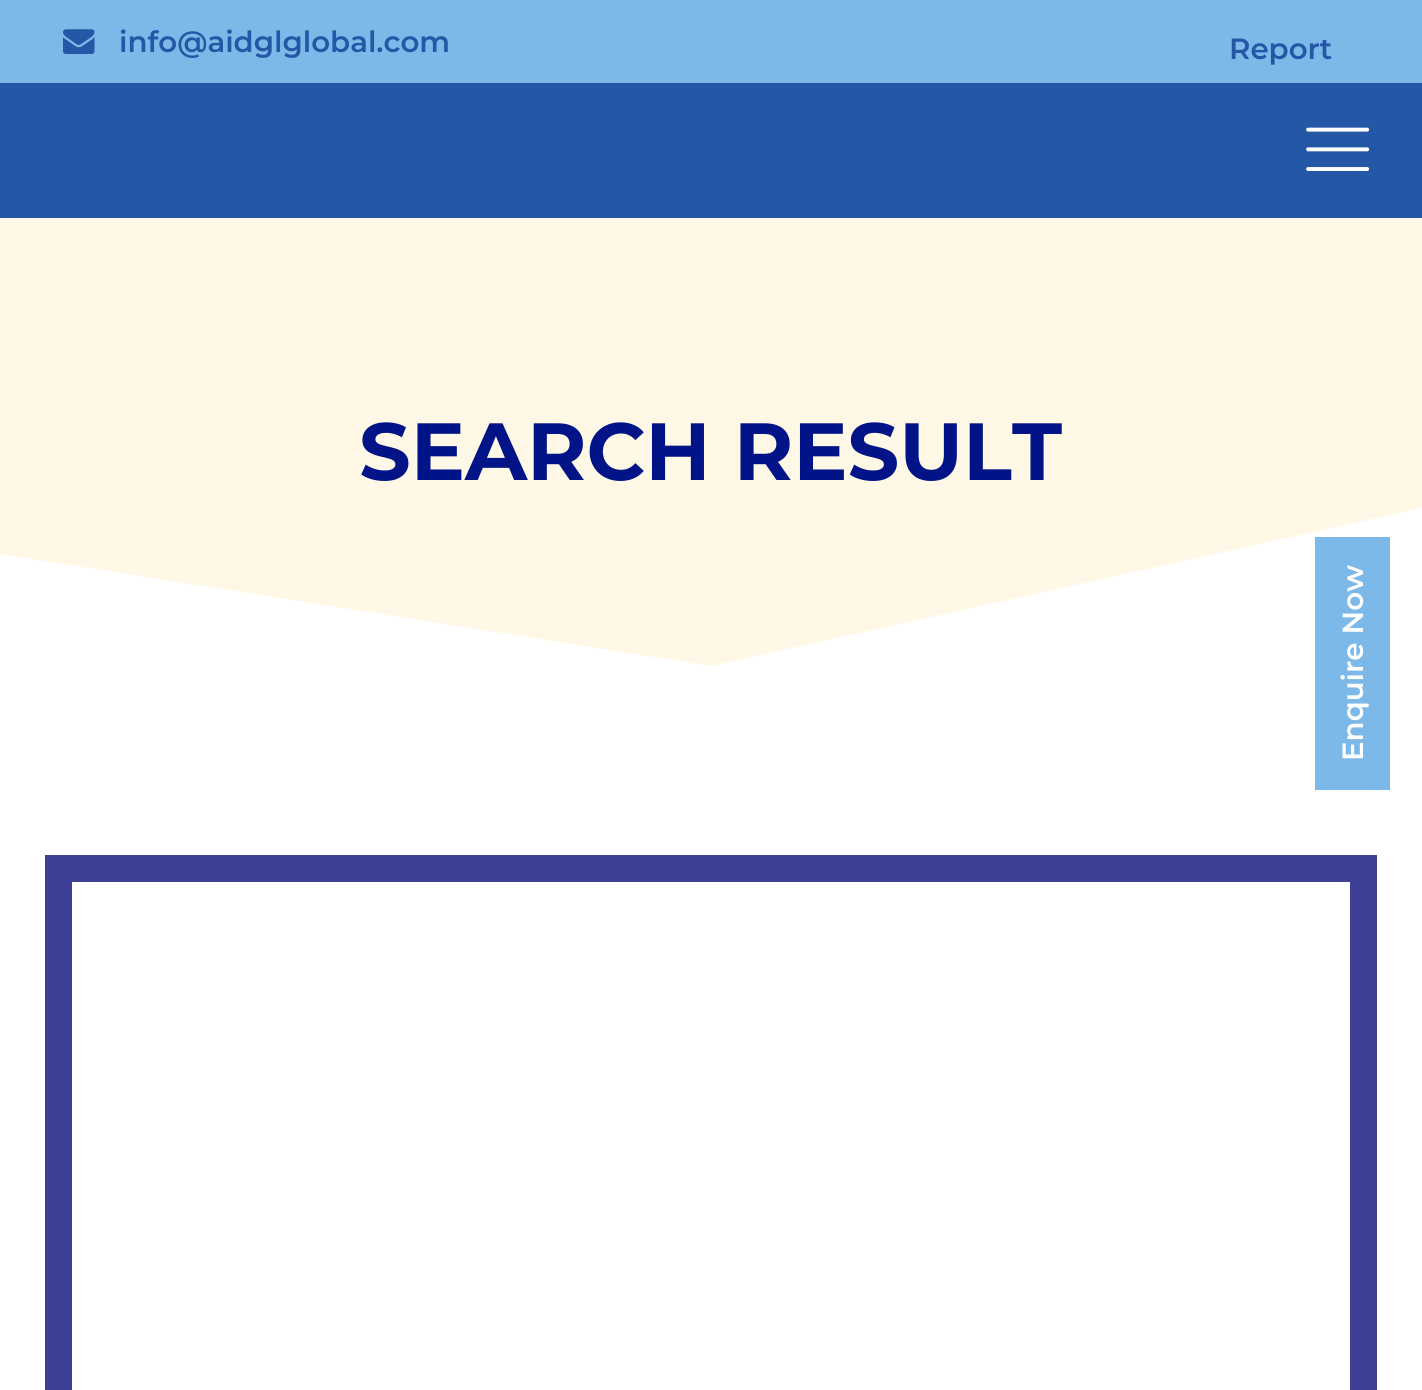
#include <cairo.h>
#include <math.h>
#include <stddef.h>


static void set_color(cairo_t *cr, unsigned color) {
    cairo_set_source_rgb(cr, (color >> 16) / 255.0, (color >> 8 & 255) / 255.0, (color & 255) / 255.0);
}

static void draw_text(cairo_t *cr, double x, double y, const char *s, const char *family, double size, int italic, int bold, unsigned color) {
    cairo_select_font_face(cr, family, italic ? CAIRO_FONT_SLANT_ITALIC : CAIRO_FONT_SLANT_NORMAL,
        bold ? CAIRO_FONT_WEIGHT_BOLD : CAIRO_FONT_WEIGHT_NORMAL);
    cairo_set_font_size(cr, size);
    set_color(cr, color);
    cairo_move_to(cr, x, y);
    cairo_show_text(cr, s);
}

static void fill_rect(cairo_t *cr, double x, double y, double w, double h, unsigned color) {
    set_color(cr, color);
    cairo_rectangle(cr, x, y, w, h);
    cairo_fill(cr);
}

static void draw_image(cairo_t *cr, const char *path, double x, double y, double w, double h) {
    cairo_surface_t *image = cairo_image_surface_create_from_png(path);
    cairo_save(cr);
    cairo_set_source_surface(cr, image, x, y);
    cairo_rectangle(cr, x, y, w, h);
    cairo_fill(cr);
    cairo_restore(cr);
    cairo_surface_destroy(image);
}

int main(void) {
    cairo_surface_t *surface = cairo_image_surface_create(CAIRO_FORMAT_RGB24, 1422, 1390);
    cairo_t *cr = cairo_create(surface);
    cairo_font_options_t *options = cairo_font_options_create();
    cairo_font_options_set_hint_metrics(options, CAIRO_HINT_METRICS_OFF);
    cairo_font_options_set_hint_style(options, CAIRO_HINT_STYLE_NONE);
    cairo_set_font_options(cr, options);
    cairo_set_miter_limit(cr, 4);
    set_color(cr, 0xFFFFFF);
    cairo_paint(cr);
    fill_rect(cr, 0, 0, 1422, 83, 0x7CB9E8);
    draw_image(cr, "assets/img1.png", 63, 29, 32, 25);
    draw_text(cr, 119, 52, "info@aidglglobal.com", "Montserrat SemiBold", 29.25, 0, 0, 0x2557A7);
    draw_text(cr, 1229, 59, "Report", "Montserrat SemiBold", 29.25, 0, 0, 0x2557A7);
    fill_rect(cr, 0, 83, 1422, 135, 0x2557A7);
    draw_image(cr, "assets/img2.png", 1306, 127, 64, 44);
    fill_rect(cr, 0, 218, 1422, 448, 0xFFF8E7);
    draw_text(cr, 359, 480, "SEARCH RESULT", "Montserrat", 81, 0, 1, 0x001487);
    set_color(cr, 0xFFFFFF);
    cairo_new_path(cr);
    cairo_move_to(cr, 0, 554);
    cairo_line_to(cr, 711, 666);
    cairo_line_to(cr, 1422, 508);
    cairo_line_to(cr, 1422, 688);
    cairo_line_to(cr, 0, 688);
    cairo_close_path(cr);
    cairo_fill(cr);
    fill_rect(cr, 1315, 537, 75, 253, 0x7CB9E8);
    cairo_save(cr);
    cairo_translate(cr, 1363, 761);
    cairo_rotate(cr, -90 * M_PI / 180);
    draw_text(cr, 0, 0, "Enquire Now", "Montserrat SemiBold", 29.25, 0, 0, 0xFFFFFF);
    cairo_restore(cr);
    cairo_rectangle(cr, 58.5, 868.5, 1305, 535);
    set_color(cr, 0x3E4095);
    cairo_set_line_width(cr, 27);
    cairo_stroke(cr);
    cairo_surface_write_to_png(surface, "output.png");
    cairo_font_options_destroy(options);
    cairo_destroy(cr);
    cairo_surface_destroy(surface);
    return 0;
}
